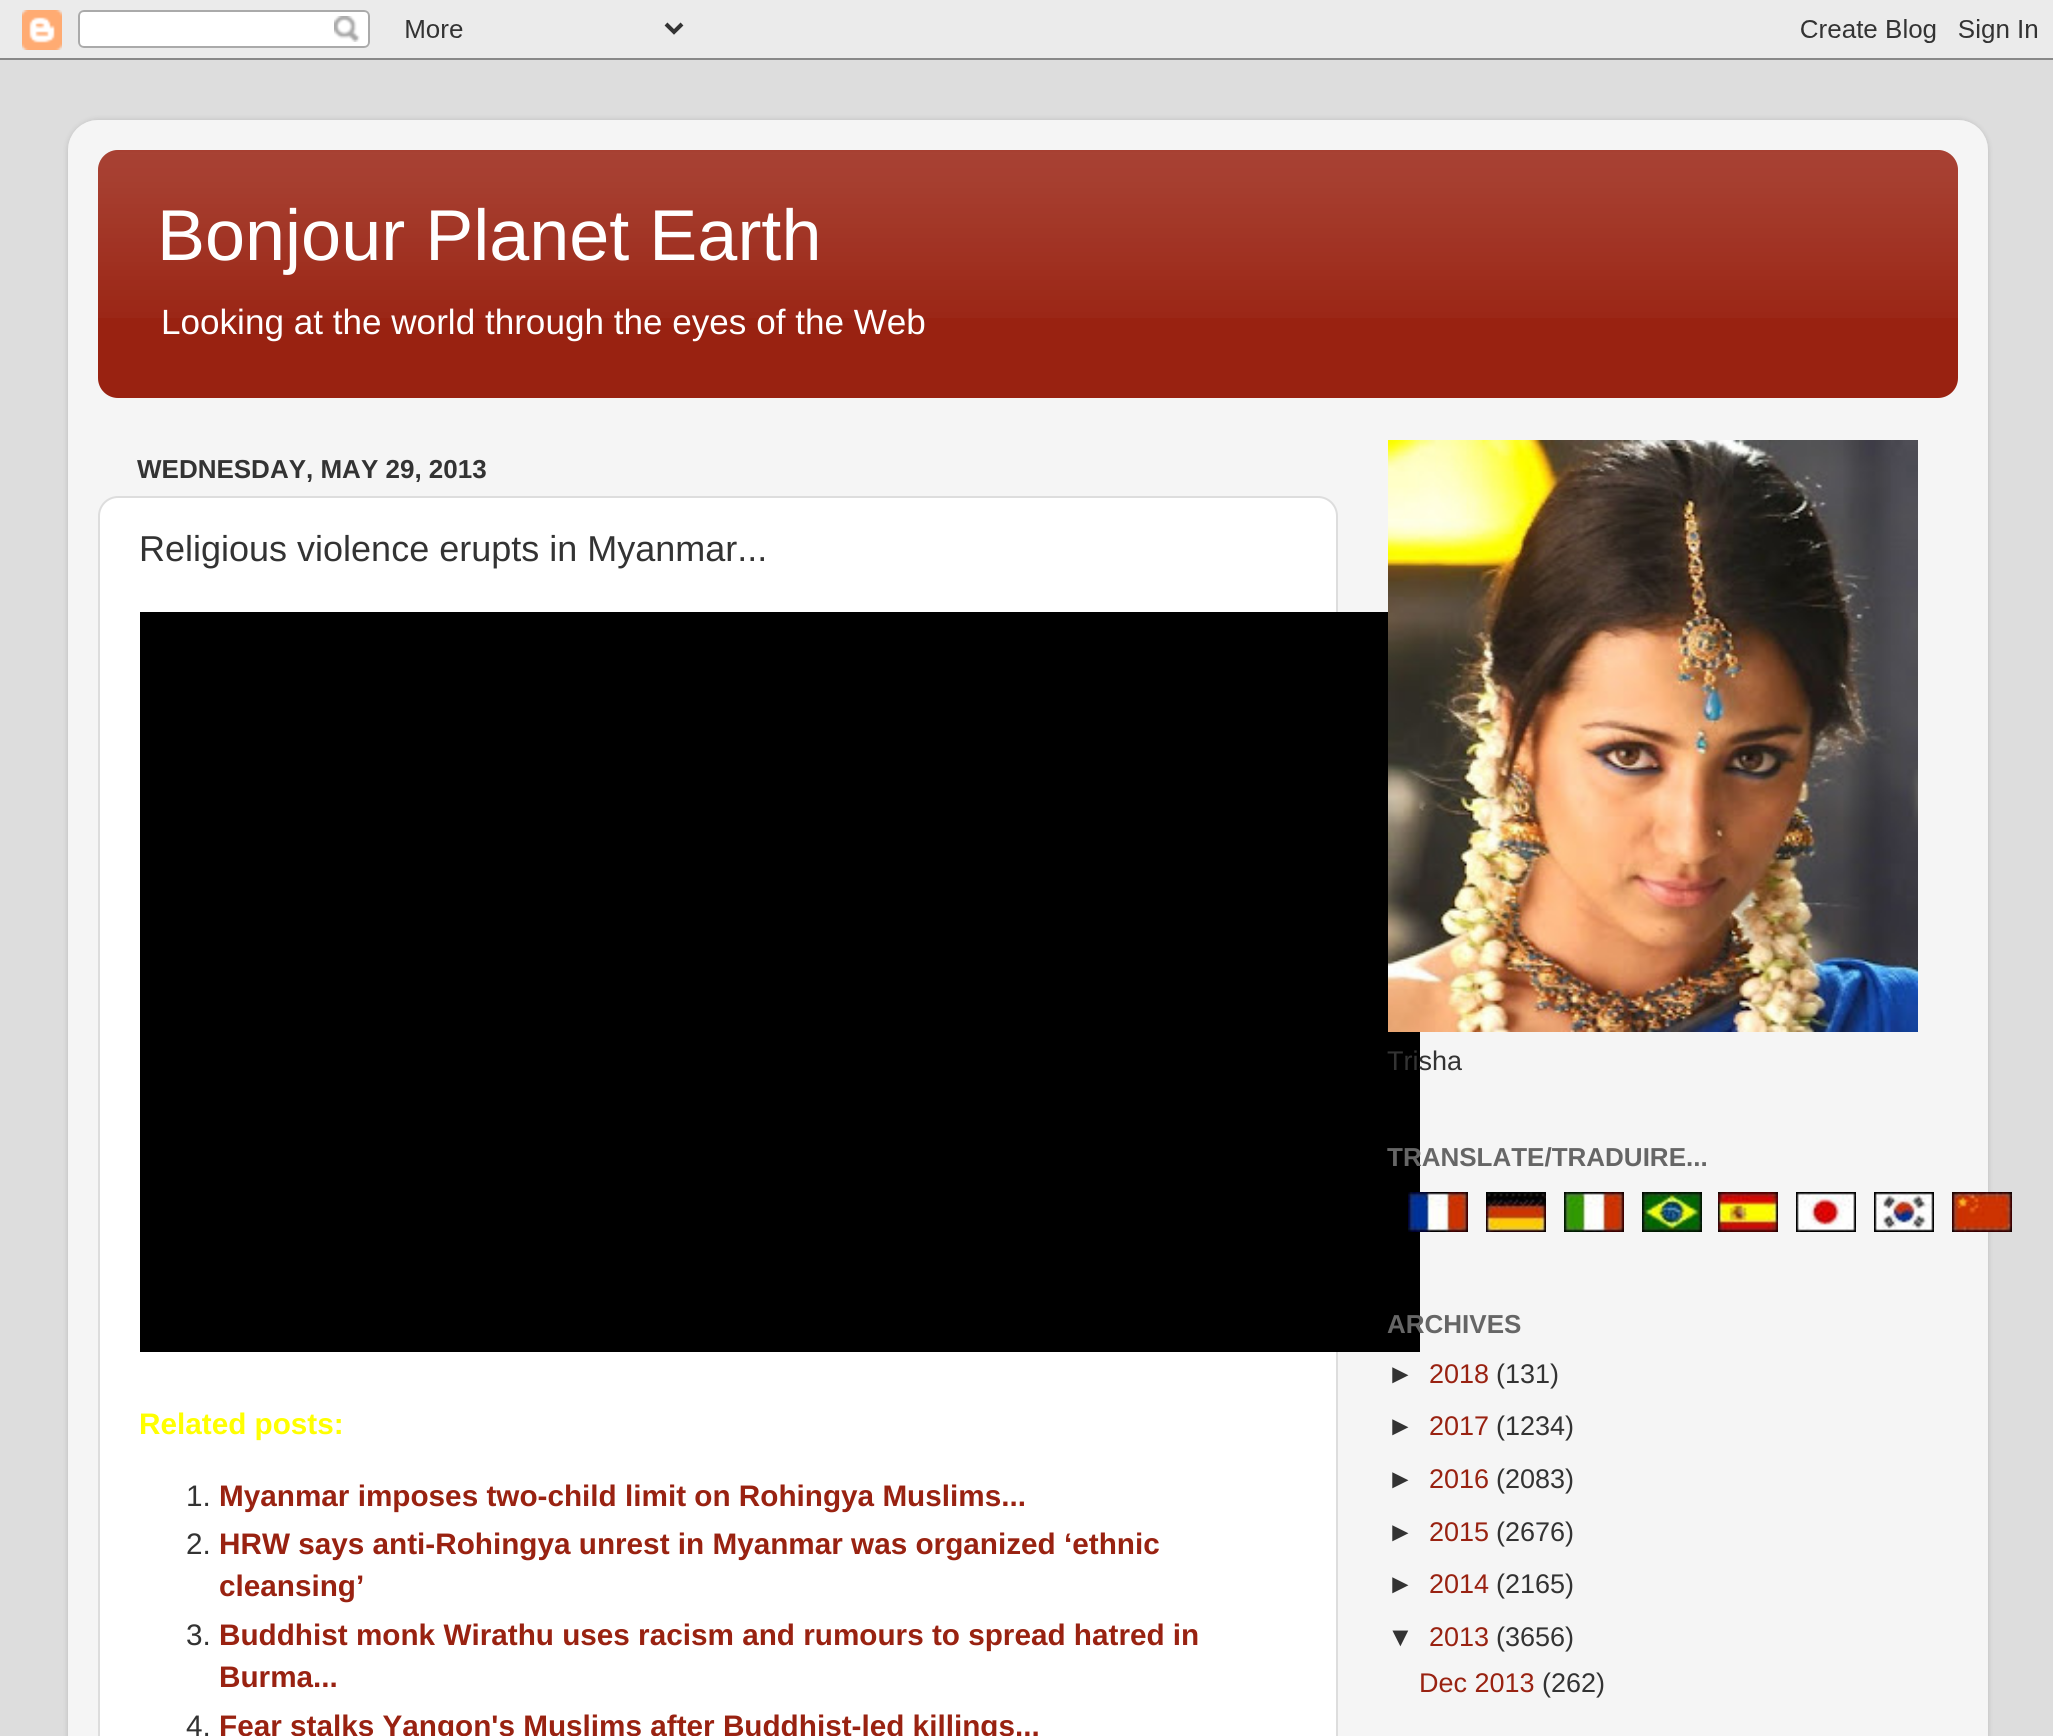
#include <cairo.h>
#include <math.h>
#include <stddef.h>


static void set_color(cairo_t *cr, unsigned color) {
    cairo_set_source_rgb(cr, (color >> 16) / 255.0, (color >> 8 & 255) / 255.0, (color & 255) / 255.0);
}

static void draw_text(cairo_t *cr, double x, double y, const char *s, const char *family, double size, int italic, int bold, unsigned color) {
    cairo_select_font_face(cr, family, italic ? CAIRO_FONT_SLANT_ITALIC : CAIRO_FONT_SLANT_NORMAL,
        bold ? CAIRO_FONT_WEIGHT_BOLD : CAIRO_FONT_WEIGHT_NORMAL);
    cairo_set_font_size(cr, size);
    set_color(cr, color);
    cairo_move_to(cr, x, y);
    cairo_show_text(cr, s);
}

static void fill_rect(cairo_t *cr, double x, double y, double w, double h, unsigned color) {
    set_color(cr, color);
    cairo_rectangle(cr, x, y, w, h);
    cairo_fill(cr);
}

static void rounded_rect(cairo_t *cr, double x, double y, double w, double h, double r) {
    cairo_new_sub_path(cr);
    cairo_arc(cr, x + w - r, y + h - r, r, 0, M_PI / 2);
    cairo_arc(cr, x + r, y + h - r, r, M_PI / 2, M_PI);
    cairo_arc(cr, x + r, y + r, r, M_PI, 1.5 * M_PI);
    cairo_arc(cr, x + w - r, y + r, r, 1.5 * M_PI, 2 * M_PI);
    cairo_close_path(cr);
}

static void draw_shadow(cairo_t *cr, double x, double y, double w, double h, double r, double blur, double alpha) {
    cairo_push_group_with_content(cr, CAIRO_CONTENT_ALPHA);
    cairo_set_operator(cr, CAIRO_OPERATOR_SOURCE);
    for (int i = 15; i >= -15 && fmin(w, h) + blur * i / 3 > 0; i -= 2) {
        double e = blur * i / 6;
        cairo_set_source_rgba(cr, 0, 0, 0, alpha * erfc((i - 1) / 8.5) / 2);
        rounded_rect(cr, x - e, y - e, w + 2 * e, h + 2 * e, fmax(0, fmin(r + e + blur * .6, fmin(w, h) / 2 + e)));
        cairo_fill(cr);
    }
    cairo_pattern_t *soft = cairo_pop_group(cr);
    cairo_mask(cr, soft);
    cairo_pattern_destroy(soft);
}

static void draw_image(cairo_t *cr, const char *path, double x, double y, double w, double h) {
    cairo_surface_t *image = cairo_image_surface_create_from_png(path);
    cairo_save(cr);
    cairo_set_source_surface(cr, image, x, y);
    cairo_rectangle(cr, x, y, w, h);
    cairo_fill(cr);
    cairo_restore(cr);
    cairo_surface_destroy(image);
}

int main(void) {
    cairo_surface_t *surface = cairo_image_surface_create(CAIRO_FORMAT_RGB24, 2053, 1736);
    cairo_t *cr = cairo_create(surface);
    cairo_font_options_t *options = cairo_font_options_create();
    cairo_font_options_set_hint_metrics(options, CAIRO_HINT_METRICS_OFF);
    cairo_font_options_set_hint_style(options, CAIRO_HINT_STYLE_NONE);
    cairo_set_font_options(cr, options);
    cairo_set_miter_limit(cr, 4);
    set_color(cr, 0xDDDDDD);
    cairo_paint(cr);
    draw_image(cr, "assets/img1.png", 0, 0, 2053, 60);
    cairo_save(cr);
    cairo_set_fill_rule(cr, CAIRO_FILL_RULE_EVEN_ODD);
    cairo_new_path(cr);
    cairo_move_to(cr, 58, 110);
    cairo_line_to(cr, 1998, 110);
    cairo_line_to(cr, 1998, 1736);
    cairo_line_to(cr, 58, 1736);
    cairo_close_path(cr);
    cairo_move_to(cr, 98, 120);
    cairo_line_to(cr, 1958, 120);
    cairo_curve_to(cr, 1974.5, 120, 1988, 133.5, 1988, 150);
    cairo_line_to(cr, 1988, 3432);
    cairo_curve_to(cr, 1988, 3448.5, 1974.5, 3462, 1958, 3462);
    cairo_line_to(cr, 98, 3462);
    cairo_curve_to(cr, 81.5, 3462, 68, 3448.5, 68, 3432);
    cairo_line_to(cr, 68, 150);
    cairo_curve_to(cr, 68, 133.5, 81.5, 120, 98, 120);
    cairo_close_path(cr);
    cairo_clip(cr);
    set_color(cr, 0x000000);
    draw_shadow(cr, 68, 120, 1920, 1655, 30, 3, 0.15);
    cairo_restore(cr);
    draw_image(cr, "assets/img2.png", 68, 120, 1920, 1616);
    set_color(cr, 0x992211);
    rounded_rect(cr, 98, 150, 1860, 248, 20);
    cairo_fill(cr);
    draw_image(cr, "assets/img3.png", 98, 150, 1860, 168);
    draw_text(cr, 157, 260, "Bonjour Planet Earth", "Liberation Sans", 72, 0, 0, 0xFFFFFF);
    draw_text(cr, 161, 334, "Looking at the world through the eyes of the Web", "Liberation Sans", 35.1, 0, 0, 0xFFFFFF);
    draw_text(cr, 137, 478, "WEDNESDAY, MAY 29, 2013", "Liberation Sans", 26, 0, 1, 0x333333);
    set_color(cr, 0xFFFFFF);
    rounded_rect(cr, 99, 497, 1238, 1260, 19);
    cairo_fill_preserve(cr);
    set_color(cr, 0xDDDDDD);
    cairo_stroke(cr);
    draw_text(cr, 139, 561, "Religious violence erupts in Myanmar...", "Liberation Sans", 36, 0, 0, 0x333333);
    fill_rect(cr, 140, 612, 1280, 740, 0x000000);
    draw_text(cr, 139, 1434, "Related posts:", "Liberation Sans", 29.7, 0, 1, 0xFFFF00);
    draw_text(cr, 186, 1506, "1.", "Liberation Sans", 29.7, 0, 0, 0x333333);
    draw_text(cr, 219, 1506, "Myanmar imposes two-child limit on Rohingya Muslims...", "Liberation Sans", 29.7, 0, 1, 0x992211);
    draw_text(cr, 186, 1554, "2.", "Liberation Sans", 29.7, 0, 0, 0x333333);
    draw_text(cr, 219, 1554, "HRW says anti-Rohingya unrest in Myanmar was organized ‘ethnic", "Liberation Sans", 29.7, 0, 1, 0x992211);
    draw_text(cr, 219, 1596, "cleansing’", "Liberation Sans", 29.7, 0, 1, 0x992211);
    draw_text(cr, 186, 1645, "3.", "Liberation Sans", 29.7, 0, 0, 0x333333);
    draw_text(cr, 219, 1645, "Buddhist monk Wirathu uses racism and rumours to spread hatred in", "Liberation Sans", 29.7, 0, 1, 0x992211);
    draw_text(cr, 219, 1687, "Burma...", "Liberation Sans", 29.7, 0, 1, 0x992211);
    draw_text(cr, 186, 1736, "4.", "Liberation Sans", 29.7, 0, 0, 0x333333);
    draw_text(cr, 219, 1736, "Fear stalks Yangon's Muslims after Buddhist-led killings...", "Liberation Sans", 29.7, 0, 1, 0x992211);
    draw_image(cr, "assets/img4.png", 1388, 440, 530, 592);
    draw_text(cr, 1387, 1070, "Trisha", "Liberation Sans", 27, 0, 0, 0x333333);
    draw_text(cr, 1387, 1166, "TRANSLATE/TRADUIRE...", "Liberation Sans", 26, 0, 1, 0x666666);
    draw_image(cr, "assets/img5.png", 1408, 1192, 60, 40);
    draw_image(cr, "assets/img6.png", 1486, 1192, 60, 40);
    draw_image(cr, "assets/img7.png", 1564, 1192, 60, 40);
    draw_image(cr, "assets/img8.png", 1642, 1192, 60, 40);
    draw_image(cr, "assets/img9.png", 1718, 1192, 60, 40);
    draw_image(cr, "assets/img10.png", 1796, 1192, 60, 40);
    draw_image(cr, "assets/img11.png", 1874, 1192, 60, 40);
    draw_image(cr, "assets/img12.png", 1952, 1192, 60, 40);
    draw_text(cr, 1387, 1333, "ARCHIVES", "Liberation Sans", 26, 0, 1, 0x666666);
    draw_text(cr, 1387, 1383, "►", "Liberation Sans", 27, 0, 0, 0x333333);
    draw_text(cr, 1429, 1383, "2018", "Liberation Sans", 27, 0, 0, 0x992211);
    draw_text(cr, 1496, 1383, "(131)", "Liberation Sans", 27, 0, 0, 0x333333);
    draw_text(cr, 1387, 1435, "►", "Liberation Sans", 27, 0, 0, 0x333333);
    draw_text(cr, 1429, 1435, "2017", "Liberation Sans", 27, 0, 0, 0x992211);
    draw_text(cr, 1496, 1435, "(1234)", "Liberation Sans", 27, 0, 0, 0x333333);
    draw_text(cr, 1387, 1488, "►", "Liberation Sans", 27, 0, 0, 0x333333);
    draw_text(cr, 1429, 1488, "2016", "Liberation Sans", 27, 0, 0, 0x992211);
    draw_text(cr, 1496, 1488, "(2083)", "Liberation Sans", 27, 0, 0, 0x333333);
    draw_text(cr, 1387, 1541, "►", "Liberation Sans", 27, 0, 0, 0x333333);
    draw_text(cr, 1429, 1541, "2015", "Liberation Sans", 27, 0, 0, 0x992211);
    draw_text(cr, 1496, 1541, "(2676)", "Liberation Sans", 27, 0, 0, 0x333333);
    draw_text(cr, 1387, 1593, "►", "Liberation Sans", 27, 0, 0, 0x333333);
    draw_text(cr, 1429, 1593, "2014", "Liberation Sans", 27, 0, 0, 0x992211);
    draw_text(cr, 1496, 1593, "(2165)", "Liberation Sans", 27, 0, 0, 0x333333);
    draw_text(cr, 1387, 1646, "▼", "Liberation Sans", 27, 0, 0, 0x333333);
    draw_text(cr, 1429, 1646, "2013", "Liberation Sans", 27, 0, 0, 0x992211);
    draw_text(cr, 1496, 1646, "(3656)", "Liberation Sans", 27, 0, 0, 0x333333);
    draw_text(cr, 1419, 1692, "Dec 2013", "Liberation Sans", 27, 0, 0, 0x992211);
    draw_text(cr, 1542, 1692, "(262)", "Liberation Sans", 27, 0, 0, 0x333333);
    cairo_surface_write_to_png(surface, "output.png");
    cairo_font_options_destroy(options);
    cairo_destroy(cr);
    cairo_surface_destroy(surface);
    return 0;
}
